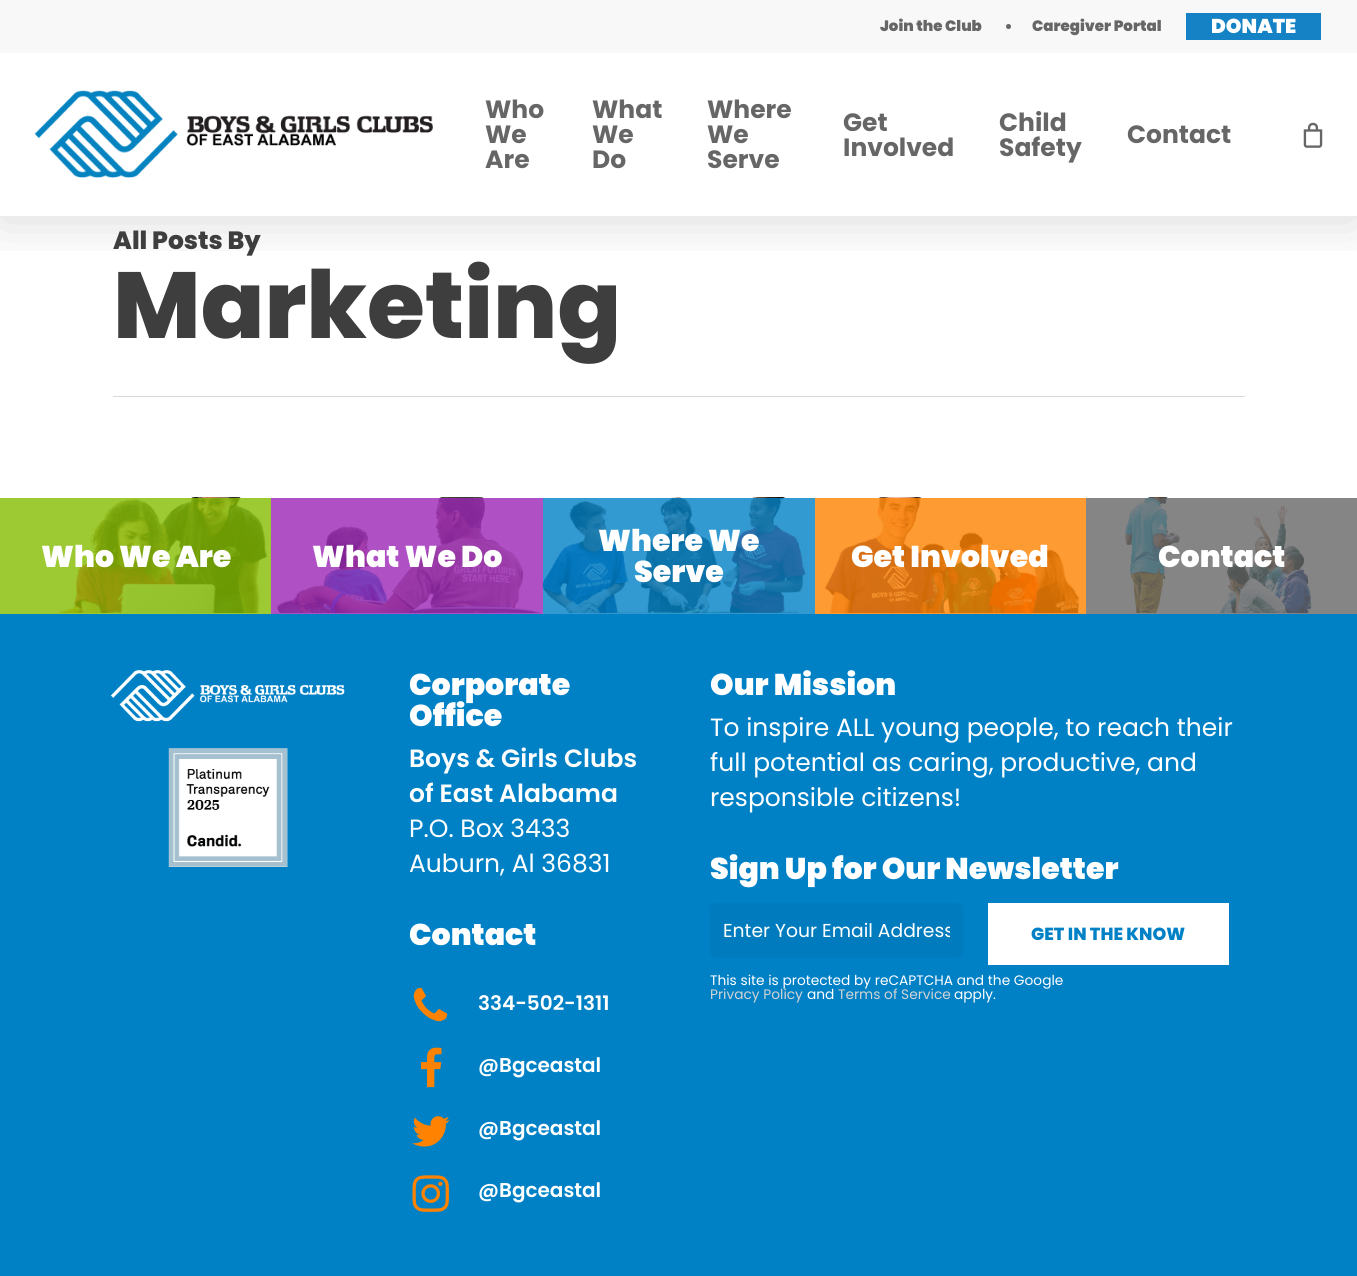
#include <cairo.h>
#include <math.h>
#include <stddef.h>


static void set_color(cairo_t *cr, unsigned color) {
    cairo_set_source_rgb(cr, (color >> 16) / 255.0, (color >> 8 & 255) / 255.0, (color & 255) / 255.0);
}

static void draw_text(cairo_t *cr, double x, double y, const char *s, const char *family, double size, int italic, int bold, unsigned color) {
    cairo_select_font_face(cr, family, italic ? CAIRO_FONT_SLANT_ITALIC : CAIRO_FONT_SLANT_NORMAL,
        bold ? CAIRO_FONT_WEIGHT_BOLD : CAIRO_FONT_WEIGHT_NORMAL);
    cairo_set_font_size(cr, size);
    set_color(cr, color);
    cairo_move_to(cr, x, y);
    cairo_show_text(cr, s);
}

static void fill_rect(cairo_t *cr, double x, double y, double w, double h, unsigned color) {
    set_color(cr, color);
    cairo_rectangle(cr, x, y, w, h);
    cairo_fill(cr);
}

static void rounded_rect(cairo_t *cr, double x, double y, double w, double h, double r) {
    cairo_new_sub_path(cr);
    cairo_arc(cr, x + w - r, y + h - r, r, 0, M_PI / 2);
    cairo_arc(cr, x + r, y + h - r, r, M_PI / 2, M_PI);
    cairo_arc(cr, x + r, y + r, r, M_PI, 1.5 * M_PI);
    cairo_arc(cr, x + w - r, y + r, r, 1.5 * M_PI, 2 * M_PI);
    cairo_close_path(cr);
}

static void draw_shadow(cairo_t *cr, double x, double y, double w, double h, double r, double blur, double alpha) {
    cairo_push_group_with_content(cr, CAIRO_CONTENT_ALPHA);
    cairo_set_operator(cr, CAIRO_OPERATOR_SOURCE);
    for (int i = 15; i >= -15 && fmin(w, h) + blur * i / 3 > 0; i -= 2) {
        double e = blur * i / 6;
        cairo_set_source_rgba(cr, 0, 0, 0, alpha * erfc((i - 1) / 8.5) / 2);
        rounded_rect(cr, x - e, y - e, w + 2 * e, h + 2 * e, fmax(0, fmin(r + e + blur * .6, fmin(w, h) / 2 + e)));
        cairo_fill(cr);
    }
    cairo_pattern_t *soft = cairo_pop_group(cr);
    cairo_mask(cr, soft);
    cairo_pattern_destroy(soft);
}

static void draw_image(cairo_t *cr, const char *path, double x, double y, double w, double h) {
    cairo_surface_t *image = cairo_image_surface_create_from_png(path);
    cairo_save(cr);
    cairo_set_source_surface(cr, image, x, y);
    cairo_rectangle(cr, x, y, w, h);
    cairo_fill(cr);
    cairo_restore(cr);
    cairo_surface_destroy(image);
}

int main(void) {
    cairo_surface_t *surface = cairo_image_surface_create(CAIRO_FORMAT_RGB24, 1357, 1276);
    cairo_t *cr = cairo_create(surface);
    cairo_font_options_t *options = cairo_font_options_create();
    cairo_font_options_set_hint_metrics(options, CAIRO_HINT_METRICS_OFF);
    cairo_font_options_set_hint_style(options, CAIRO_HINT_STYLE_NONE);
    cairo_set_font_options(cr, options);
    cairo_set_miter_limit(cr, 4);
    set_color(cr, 0xFFFFFF);
    cairo_paint(cr);
    fill_rect(cr, 1086, 498, 271, 116, 0x858585);
    fill_rect(cr, 815, 498, 271, 116, 0xFF9B33);
    fill_rect(cr, 543, 498, 272, 116, 0x339AD1);
    fill_rect(cr, 271, 498, 272, 116, 0xAF51C5);
    fill_rect(cr, 0, 498, 271, 116, 0x9DCA33);
    cairo_save(cr);
    cairo_rectangle(cr, 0, 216, 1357, 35);
    cairo_clip(cr);
    set_color(cr, 0x000000);
    draw_shadow(cr, 0, 4, 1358, 216, 0, 28, 0.15);
    cairo_restore(cr);
    fill_rect(cr, 0, 0, 1357, 53, 0xF8F8F8);
    draw_text(cr, 880, 31, "Join the Club", "Poppins Black", 15, 0, 0, 0x666666);
    cairo_new_path(cr);
    cairo_arc(cr, 1008.5, 26.5, 2.5, 0, 2 * M_PI);
    cairo_fill(cr);
    draw_text(cr, 1032, 31, "Caregiver Portal", "Poppins Black", 15, 0, 0, 0x666666);
    fill_rect(cr, 1186, 13, 135, 27, 0x1482C5);
    draw_text(cr, 1211, 33, "DONATE", "Poppins Black", 20, 0, 0, 0xFFFFFF);
    draw_image(cr, "assets/img1.png", 34, 90, 399, 89);
    draw_text(cr, 485, 118, "Who", "Poppins", 25, 0, 1, 0x666666);
    draw_text(cr, 485, 143, "We", "Poppins", 25, 0, 1, 0x666666);
    draw_text(cr, 485, 168, "Are", "Poppins", 25, 0, 1, 0x666666);
    draw_text(cr, 592, 118, "What", "Poppins", 25, 0, 1, 0x666666);
    draw_text(cr, 592, 143, "We", "Poppins", 25, 0, 1, 0x666666);
    draw_text(cr, 592, 168, "Do", "Poppins", 25, 0, 1, 0x666666);
    draw_text(cr, 707, 118, "Where", "Poppins", 25, 0, 1, 0x666666);
    draw_text(cr, 707, 143, "We", "Poppins", 25, 0, 1, 0x666666);
    draw_text(cr, 707, 168, "Serve", "Poppins", 25, 0, 1, 0x666666);
    draw_text(cr, 843, 131, "Get", "Poppins", 25, 0, 1, 0x666666);
    draw_text(cr, 843, 156, "Involved", "Poppins", 25, 0, 1, 0x666666);
    draw_text(cr, 999, 131, "Child", "Poppins", 25, 0, 1, 0x666666);
    draw_text(cr, 999, 156, "Safety", "Poppins", 25, 0, 1, 0x666666);
    draw_text(cr, 1127, 143, "Contact", "Poppins", 25, 0, 1, 0x666666);
    draw_image(cr, "assets/img2.png", 1303, 122, 20, 26);
    fill_rect(cr, 113, 396, 1132, 1, 0xD9D9D9);
    draw_text(cr, 113, 249, "All Posts By", "Poppins ExtraBold", 25, 0, 0, 0x3F3E3E);
    draw_text(cr, 113, 338, "Marketing", "Poppins ExtraBold", 93.75, 0, 0, 0x3F3E3E);
    draw_image(cr, "assets/img3.png", 57, 497, 211, 117);
    draw_text(cr, 41, 567, "Who We Are", "Poppins Black", 30, 0, 0, 0xFFFFFF);
    draw_image(cr, "assets/img4.png", 276, 497, 265, 117);
    draw_text(cr, 312, 567, "What We Do", "Poppins Black", 30, 0, 0, 0xFFFFFF);
    draw_image(cr, "assets/img5.png", 542, 497, 264, 117);
    draw_text(cr, 598, 551, "Where We", "Poppins Black", 30, 0, 0, 0xFFFFFF);
    draw_text(cr, 634, 582, "Serve", "Poppins Black", 30, 0, 0, 0xFFFFFF);
    draw_image(cr, "assets/img6.png", 824, 497, 256, 117);
    draw_text(cr, 851, 567, "Get Involved", "Poppins Black", 30, 0, 0, 0xFFFFFF);
    draw_image(cr, "assets/img7.png", 1125, 497, 187, 117);
    draw_text(cr, 1158, 567, "Contact", "Poppins Black", 30, 0, 0, 0xFFFFFF);
    fill_rect(cr, 0, 614, 1357, 662, 0x0081C6);
    draw_image(cr, "assets/img8.png", 110, 670, 235, 52);
    draw_image(cr, "assets/img9.png", 168, 748, 120, 119);
    draw_text(cr, 409, 695, "Corporate", "Poppins Black", 30, 0, 0, 0xFFFFFF);
    draw_text(cr, 409, 726, "Office", "Poppins Black", 30, 0, 0, 0xFFFFFF);
    draw_text(cr, 409, 767, "Boys & Girls Clubs", "Poppins SemiBold", 25, 0, 0, 0xFFFFFF);
    draw_text(cr, 409, 802, "of East Alabama", "Poppins SemiBold", 25, 0, 0, 0xFFFFFF);
    draw_text(cr, 409, 837, "P.O. Box 3433", "Poppins", 25, 0, 0, 0xFFFFFF);
    draw_text(cr, 409, 872, "Auburn, Al 36831", "Poppins", 25, 0, 0, 0xFFFFFF);
    draw_text(cr, 409, 945, "Contact", "Poppins Black", 30, 0, 0, 0xFFFFFF);
    draw_image(cr, "assets/img10.png", 413, 987, 35, 35);
    draw_text(cr, 478, 1010, "334-502-1311", "Poppins SemiBold", 20, 0, 0, 0xFFFFFF);
    draw_image(cr, "assets/img11.png", 421, 1047, 21, 41);
    draw_text(cr, 478, 1072, "@Bgceastal", "Poppins SemiBold", 20, 0, 0, 0xFFFFFF);
    draw_image(cr, "assets/img12.png", 412, 1116, 38, 31);
    draw_text(cr, 478, 1135, "@Bgceastal", "Poppins SemiBold", 20, 0, 0, 0xFFFFFF);
    draw_image(cr, "assets/img13.png", 412, 1175, 37, 37);
    draw_text(cr, 478, 1197, "@Bgceastal", "Poppins SemiBold", 20, 0, 0, 0xFFFFFF);
    draw_text(cr, 710, 695, "Our Mission", "Poppins Black", 30, 0, 0, 0xFFFFFF);
    draw_text(cr, 710, 736, "To inspire ALL young people, to reach their", "Poppins", 25, 0, 0, 0xFFFFFF);
    draw_text(cr, 710, 771, "full potential as caring, productive, and", "Poppins", 25, 0, 0, 0xFFFFFF);
    draw_text(cr, 710, 806, "responsible citizens!", "Poppins", 25, 0, 0, 0xFFFFFF);
    draw_text(cr, 710, 879, "Sign Up for Our Newsletter", "Poppins Black", 30, 0, 0, 0xFFFFFF);
    set_color(cr, 0x007CBE);
    rounded_rect(cr, 710, 903, 253, 55, 5);
    cairo_fill(cr);
    cairo_save(cr);
    cairo_rectangle(cr, 723, 915, 227, 29);
    cairo_clip(cr);
    draw_text(cr, 723, 937, "Enter Your Email Address", "Poppins", 18.75, 0, 0, 0xFFFFFF);
    cairo_restore(cr);
    draw_text(cr, 710, 985, "This site is protected by reCAPTCHA and the Google", "Poppins", 13.75, 0, 0, 0xFFFFFF);
    draw_text(cr, 710, 999, "Privacy Policy", "Poppins", 13.75, 0, 0, 0xD4D4D4);
    draw_text(cr, 807, 999, "and", "Poppins", 13.75, 0, 0, 0xFFFFFF);
    draw_text(cr, 838, 999, "Terms of Service", "Poppins", 13.75, 0, 0, 0xD4D4D4);
    draw_text(cr, 954, 999, "apply.", "Poppins", 13.75, 0, 0, 0xFFFFFF);
    fill_rect(cr, 988, 903, 241, 62, 0xFFFFFF);
    draw_text(cr, 1031, 940, "GET IN THE KNOW", "Poppins ExtraBold", 17.5, 0, 0, 0x0081C6);
    cairo_surface_write_to_png(surface, "output.png");
    cairo_font_options_destroy(options);
    cairo_destroy(cr);
    cairo_surface_destroy(surface);
    return 0;
}
